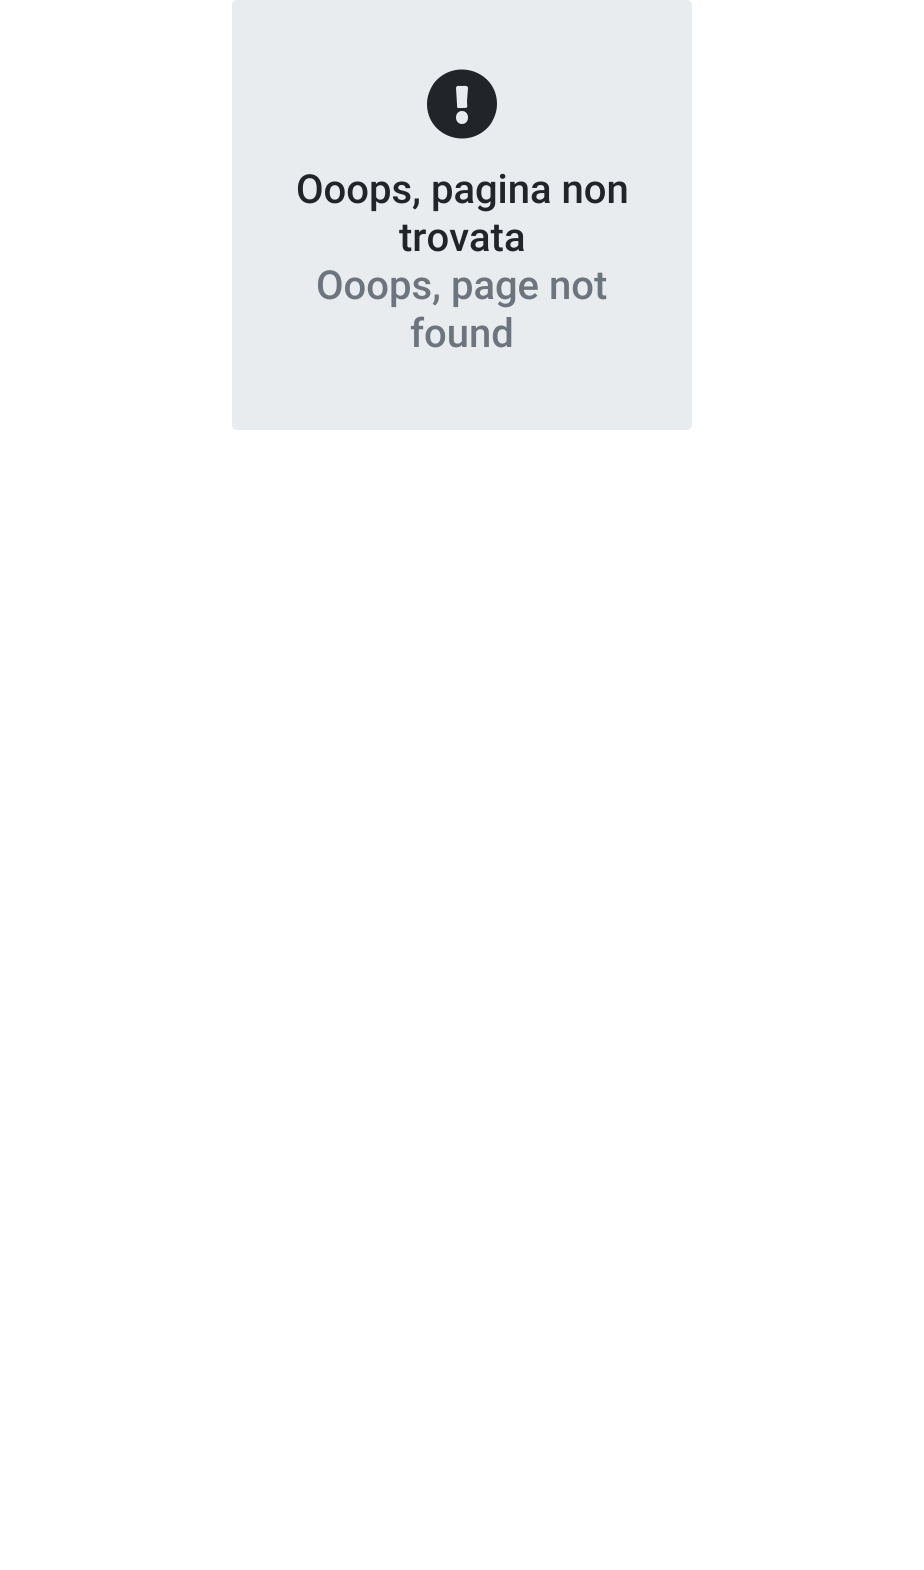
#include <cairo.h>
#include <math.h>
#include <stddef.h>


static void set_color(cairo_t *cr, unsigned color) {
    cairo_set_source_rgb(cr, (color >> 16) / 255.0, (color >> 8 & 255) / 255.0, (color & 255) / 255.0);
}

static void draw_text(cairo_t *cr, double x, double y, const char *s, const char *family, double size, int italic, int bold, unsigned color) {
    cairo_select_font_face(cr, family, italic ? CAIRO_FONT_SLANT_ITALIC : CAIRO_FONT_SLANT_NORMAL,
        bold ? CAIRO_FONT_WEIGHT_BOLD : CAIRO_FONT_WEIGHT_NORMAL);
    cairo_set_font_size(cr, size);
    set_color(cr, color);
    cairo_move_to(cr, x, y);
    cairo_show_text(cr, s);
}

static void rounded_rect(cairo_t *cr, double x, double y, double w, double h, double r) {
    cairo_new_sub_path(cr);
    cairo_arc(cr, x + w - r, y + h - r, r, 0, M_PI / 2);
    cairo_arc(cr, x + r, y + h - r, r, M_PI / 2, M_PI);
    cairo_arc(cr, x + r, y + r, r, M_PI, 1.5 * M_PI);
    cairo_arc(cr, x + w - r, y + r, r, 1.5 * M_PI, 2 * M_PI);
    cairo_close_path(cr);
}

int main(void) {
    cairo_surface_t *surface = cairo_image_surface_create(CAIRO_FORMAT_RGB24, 924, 1570);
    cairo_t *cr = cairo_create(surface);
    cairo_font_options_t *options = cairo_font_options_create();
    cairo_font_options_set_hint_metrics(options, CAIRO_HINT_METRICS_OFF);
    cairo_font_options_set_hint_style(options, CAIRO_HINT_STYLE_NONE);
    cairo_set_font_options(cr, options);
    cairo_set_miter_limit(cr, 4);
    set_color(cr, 0xFFFFFF);
    cairo_paint(cr);
    set_color(cr, 0xE9ECEF);
    rounded_rect(cr, 232, 0, 460, 430, 5);
    cairo_fill(cr);
    set_color(cr, 0x212529);
    cairo_new_path(cr);
    cairo_move_to(cr, 497, 104);
    cairo_curve_to(cr, 497, 112, 494, 119, 490, 125);
    cairo_curve_to(cr, 469, 151, 427, 137, 427, 104);
    cairo_curve_to(cr, 427, 96, 430, 89, 434, 83);
    cairo_curve_to(cr, 455, 57, 497, 71, 497, 104);
    cairo_close_path(cr);
    cairo_move_to(cr, 462, 111);
    cairo_curve_to(cr, 454, 111, 454, 124, 462, 124);
    cairo_curve_to(cr, 470, 124, 470, 111, 462, 111);
    cairo_close_path(cr);
    cairo_move_to(cr, 456, 88);
    cairo_line_to(cr, 457, 104);
    cairo_curve_to(cr, 457, 109, 457, 108, 462, 108);
    cairo_curve_to(cr, 469, 108, 467, 108, 467, 101);
    cairo_line_to(cr, 468, 88);
    cairo_curve_to(cr, 468, 85, 463, 86, 462, 86);
    cairo_curve_to(cr, 460, 86, 456, 85, 456, 88);
    cairo_close_path(cr);
    cairo_fill(cr);
    draw_text(cr, 296, 203, "Ooops, pagina non", "Roboto Medium", 40, 0, 0, 0x212529);
    draw_text(cr, 399, 251, "trovata", "Roboto Medium", 40, 0, 0, 0x212529);
    draw_text(cr, 316, 299, "Ooops, page not", "Roboto Medium", 40, 0, 0, 0x6C757D);
    draw_text(cr, 410, 347, "found", "Roboto Medium", 40, 0, 0, 0x6C757D);
    cairo_surface_write_to_png(surface, "output.png");
    cairo_font_options_destroy(options);
    cairo_destroy(cr);
    cairo_surface_destroy(surface);
    return 0;
}
